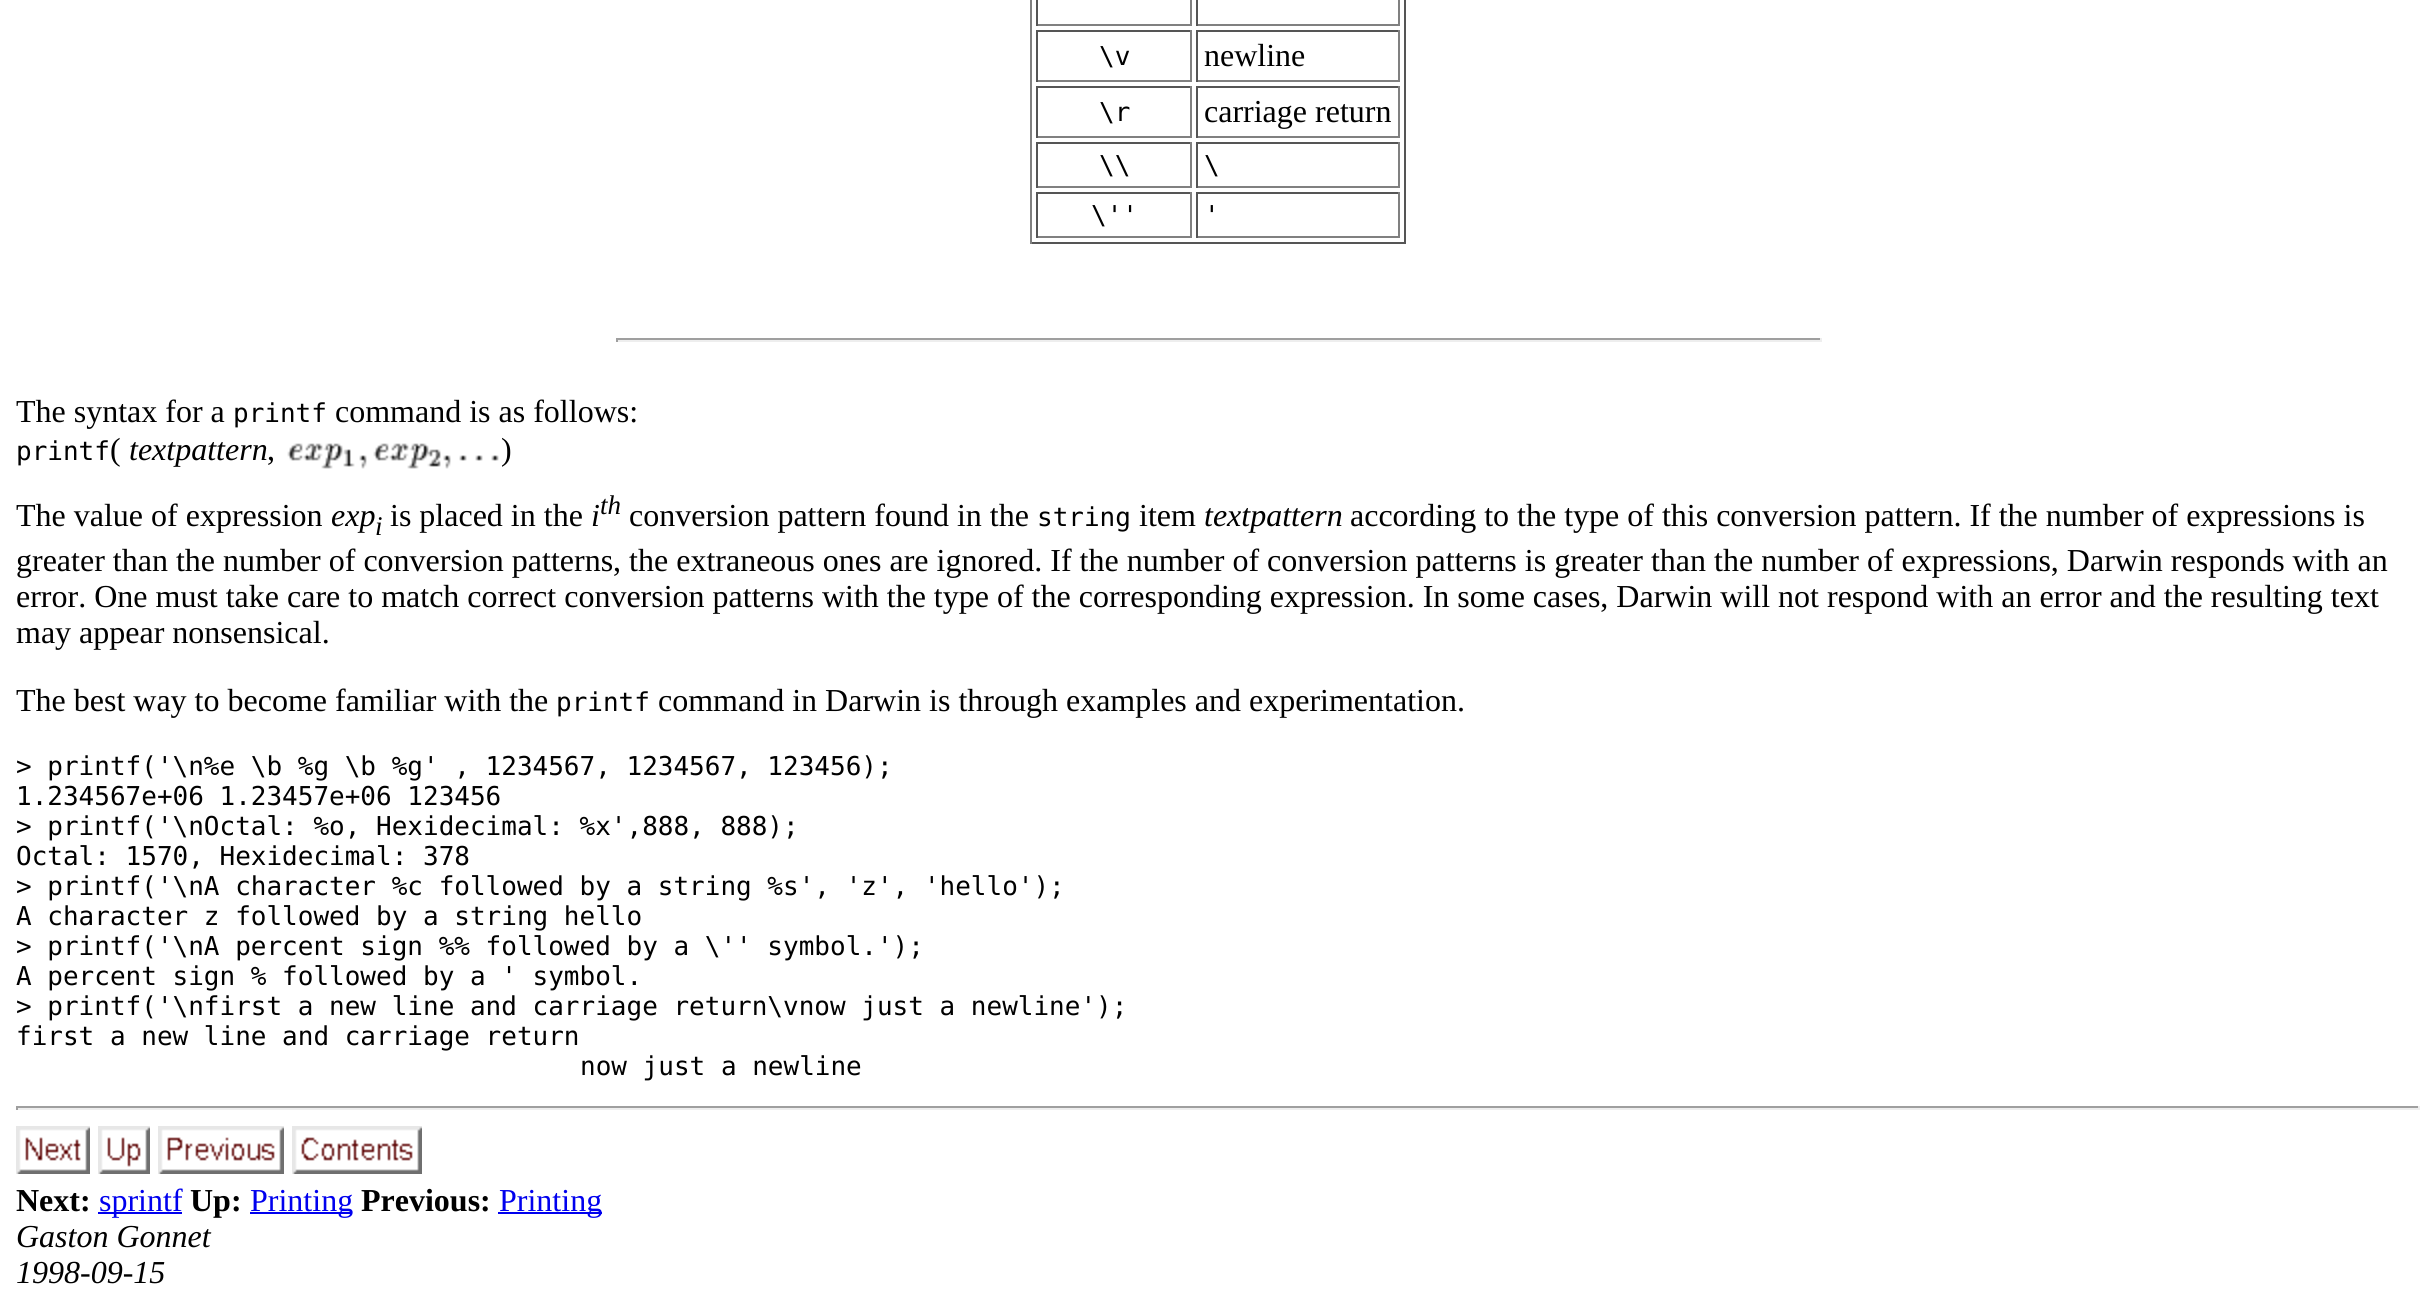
#include <cairo.h>
#include <math.h>
#include <stddef.h>


static void set_color(cairo_t *cr, unsigned color) {
    cairo_set_source_rgb(cr, (color >> 16) / 255.0, (color >> 8 & 255) / 255.0, (color & 255) / 255.0);
}

static void draw_text(cairo_t *cr, double x, double y, const char *s, const char *family, double size, int italic, int bold, unsigned color) {
    cairo_select_font_face(cr, family, italic ? CAIRO_FONT_SLANT_ITALIC : CAIRO_FONT_SLANT_NORMAL,
        bold ? CAIRO_FONT_WEIGHT_BOLD : CAIRO_FONT_WEIGHT_NORMAL);
    cairo_set_font_size(cr, size);
    set_color(cr, color);
    cairo_move_to(cr, x, y);
    cairo_show_text(cr, s);
}

static void fill_rect(cairo_t *cr, double x, double y, double w, double h, unsigned color) {
    set_color(cr, color);
    cairo_rectangle(cr, x, y, w, h);
    cairo_fill(cr);
}

static void draw_image(cairo_t *cr, const char *path, double x, double y, double w, double h) {
    cairo_surface_t *image = cairo_image_surface_create_from_png(path);
    cairo_save(cr);
    cairo_set_source_surface(cr, image, x, y);
    cairo_rectangle(cr, x, y, w, h);
    cairo_fill(cr);
    cairo_restore(cr);
    cairo_surface_destroy(image);
}

int main(void) {
    cairo_surface_t *surface = cairo_image_surface_create(CAIRO_FORMAT_RGB24, 2436, 1305);
    cairo_t *cr = cairo_create(surface);
    cairo_font_options_t *options = cairo_font_options_create();
    cairo_font_options_set_hint_metrics(options, CAIRO_HINT_METRICS_OFF);
    cairo_font_options_set_hint_style(options, CAIRO_HINT_STYLE_NONE);
    cairo_set_font_options(cr, options);
    cairo_set_miter_limit(cr, 4);
    set_color(cr, 0xFFFFFF);
    cairo_paint(cr);
    fill_rect(cr, 1404, 0, 2, 244, 0x555555);
    fill_rect(cr, 1030, 242, 376, 2, 0x555555);
    fill_rect(cr, 1030, 0, 2, 244, 0x808080);
    fill_rect(cr, 1190, 0, 2, 26, 0x808080);
    fill_rect(cr, 1036, 24, 156, 2, 0x808080);
    fill_rect(cr, 1036, 0, 2, 26, 0x555555);
    fill_rect(cr, 1398, 0, 2, 26, 0x808080);
    fill_rect(cr, 1196, 24, 204, 2, 0x808080);
    fill_rect(cr, 1196, 0, 2, 26, 0x555555);
    fill_rect(cr, 1036, 30, 156, 2, 0x555555);
    fill_rect(cr, 1190, 30, 2, 52, 0x808080);
    fill_rect(cr, 1036, 80, 156, 2, 0x808080);
    fill_rect(cr, 1036, 30, 2, 52, 0x555555);
    draw_text(cr, 1099, 65, "\\v", "DejaVu Sans Mono", 26, 0, 0, 0x000000);
    fill_rect(cr, 1196, 30, 204, 2, 0x555555);
    fill_rect(cr, 1398, 30, 2, 52, 0x808080);
    fill_rect(cr, 1196, 80, 204, 2, 0x808080);
    fill_rect(cr, 1196, 30, 2, 52, 0x555555);
    draw_text(cr, 1204, 66, "newline", "Liberation Serif", 32, 0, 0, 0x000000);
    fill_rect(cr, 1036, 86, 156, 2, 0x555555);
    fill_rect(cr, 1190, 86, 2, 52, 0x808080);
    fill_rect(cr, 1036, 136, 156, 2, 0x808080);
    fill_rect(cr, 1036, 86, 2, 52, 0x555555);
    draw_text(cr, 1099, 121, "\\r", "DejaVu Sans Mono", 26, 0, 0, 0x000000);
    fill_rect(cr, 1196, 86, 204, 2, 0x555555);
    fill_rect(cr, 1398, 86, 2, 52, 0x808080);
    fill_rect(cr, 1196, 136, 204, 2, 0x808080);
    fill_rect(cr, 1196, 86, 2, 52, 0x555555);
    draw_text(cr, 1204, 122, "carriage return", "Liberation Serif", 32, 0, 0, 0x000000);
    fill_rect(cr, 1036, 142, 156, 2, 0x555555);
    fill_rect(cr, 1190, 142, 2, 46, 0x808080);
    fill_rect(cr, 1036, 186, 156, 2, 0x808080);
    fill_rect(cr, 1036, 142, 2, 46, 0x555555);
    draw_text(cr, 1099, 174, "\\\\", "DejaVu Sans Mono", 26, 0, 0, 0x000000);
    fill_rect(cr, 1196, 142, 204, 2, 0x555555);
    fill_rect(cr, 1398, 142, 2, 46, 0x808080);
    fill_rect(cr, 1196, 186, 204, 2, 0x808080);
    fill_rect(cr, 1196, 142, 2, 46, 0x555555);
    draw_text(cr, 1204, 174, "\\", "DejaVu Sans Mono", 26, 0, 0, 0x000000);
    fill_rect(cr, 1036, 192, 156, 2, 0x555555);
    fill_rect(cr, 1190, 192, 2, 46, 0x808080);
    fill_rect(cr, 1036, 236, 156, 2, 0x808080);
    fill_rect(cr, 1036, 192, 2, 46, 0x555555);
    draw_text(cr, 1091, 224, "\\''", "DejaVu Sans Mono", 26, 0, 0, 0x000000);
    fill_rect(cr, 1196, 192, 204, 2, 0x555555);
    fill_rect(cr, 1398, 192, 2, 46, 0x808080);
    fill_rect(cr, 1196, 236, 204, 2, 0x808080);
    fill_rect(cr, 1196, 192, 2, 46, 0x555555);
    draw_text(cr, 1204, 224, "'", "DejaVu Sans Mono", 26, 0, 0, 0x000000);
    fill_rect(cr, 616, 338, 1206, 2, 0x9F9F9F);
    fill_rect(cr, 1820, 338, 2, 4, 0xEEEEEE);
    fill_rect(cr, 616, 340, 1206, 2, 0xEEEEEE);
    fill_rect(cr, 616, 338, 2, 4, 0x9F9F9F);
    draw_text(cr, 16, 422, "The syntax for a", "Liberation Serif", 32, 0, 0, 0x000000);
    draw_text(cr, 233, 422, "printf", "DejaVu Sans Mono", 26, 0, 0, 0x000000);
    draw_text(cr, 335, 422, "command is as follows:", "Liberation Serif", 32, 0, 0, 0x000000);
    draw_text(cr, 16, 460, "printf", "DejaVu Sans Mono", 26, 0, 0, 0x000000);
    draw_text(cr, 110, 460, "(", "Liberation Serif", 32, 0, 0, 0x000000);
    draw_text(cr, 129, 460, "textpattern", "Liberation Serif", 32, 1, 0, 0x000000);
    draw_text(cr, 267, 460, ",", "Liberation Serif", 32, 0, 0, 0x000000);
    draw_image(cr, "assets/img1.png", 287, 443, 212, 26);
    draw_text(cr, 501, 460, ")", "Liberation Serif", 32, 0, 0, 0x000000);
    draw_text(cr, 16, 526, "The value of expression", "Liberation Serif", 32, 0, 0, 0x000000);
    draw_text(cr, 331, 526, "exp", "Liberation Serif", 32, 1, 0, 0x000000);
    draw_text(cr, 375, 535, "i", "Liberation Serif", 27, 1, 0, 0x000000);
    draw_text(cr, 390, 526, "is placed in the", "Liberation Serif", 32, 0, 0, 0x000000);
    draw_text(cr, 591, 526, "i", "Liberation Serif", 32, 1, 0, 0x000000);
    draw_text(cr, 600, 514, "th", "Liberation Serif", 27, 1, 0, 0x000000);
    draw_text(cr, 629, 526, "conversion pattern found in the", "Liberation Serif", 32, 0, 0, 0x000000);
    draw_text(cr, 1037, 526, "string", "DejaVu Sans Mono", 26, 0, 0, 0x000000);
    draw_text(cr, 1139, 526, "item", "Liberation Serif", 32, 0, 0, 0x000000);
    draw_text(cr, 1204, 526, "textpattern", "Liberation Serif", 32, 1, 0, 0x000000);
    draw_text(cr, 1350, 526, "according to the type of this conversion pattern. If the number of expressions is", "Liberation Serif", 32, 0, 0, 0x000000);
    draw_text(cr, 16, 571, "greater than the number of conversion patterns, the extraneous ones are ignored. If the number of conversion patterns is greater than the number of expressions, Darwin responds with an", "Liberation Serif", 32, 0, 0, 0x000000);
    draw_text(cr, 16, 607, "error. One must take care to match correct conversion patterns with the type of the corresponding expression. In some cases, Darwin will not respond with an error and the resulting text", "Liberation Serif", 32, 0, 0, 0x000000);
    draw_text(cr, 16, 643, "may appear nonsensical.", "Liberation Serif", 32, 0, 0, 0x000000);
    draw_text(cr, 16, 711, "The best way to become familiar with the", "Liberation Serif", 32, 0, 0, 0x000000);
    draw_text(cr, 556, 711, "printf", "DejaVu Sans Mono", 26, 0, 0, 0x000000);
    draw_text(cr, 658, 711, "command in Darwin is through examples and experimentation.", "Liberation Serif", 32, 0, 0, 0x000000);
    draw_text(cr, 16, 775, "> printf('\\n%e \\b %g \\b %g' , 1234567, 1234567, 123456);", "DejaVu Sans Mono", 26, 0, 0, 0x000000);
    draw_text(cr, 16, 805, "1.234567e+06 1.23457e+06 123456", "DejaVu Sans Mono", 26, 0, 0, 0x000000);
    draw_text(cr, 16, 835, "> printf('\\nOctal: %o, Hexidecimal: %x',888, 888);", "DejaVu Sans Mono", 26, 0, 0, 0x000000);
    draw_text(cr, 16, 865, "Octal: 1570, Hexidecimal: 378", "DejaVu Sans Mono", 26, 0, 0, 0x000000);
    draw_text(cr, 16, 895, "> printf('\\nA character %c followed by a string %s', 'z', 'hello');", "DejaVu Sans Mono", 26, 0, 0, 0x000000);
    draw_text(cr, 16, 925, "A character z followed by a string hello", "DejaVu Sans Mono", 26, 0, 0, 0x000000);
    draw_text(cr, 16, 955, "> printf('\\nA percent sign %% followed by a \\'' symbol.');", "DejaVu Sans Mono", 26, 0, 0, 0x000000);
    draw_text(cr, 16, 985, "A percent sign % followed by a ' symbol.", "DejaVu Sans Mono", 26, 0, 0, 0x000000);
    draw_text(cr, 16, 1015, "> printf('\\nfirst a new line and carriage return\\vnow just a newline');", "DejaVu Sans Mono", 26, 0, 0, 0x000000);
    draw_text(cr, 16, 1045, "first a new line and carriage return", "DejaVu Sans Mono", 26, 0, 0, 0x000000);
    draw_text(cr, 580, 1075, "now just a newline", "DejaVu Sans Mono", 26, 0, 0, 0x000000);
    fill_rect(cr, 16, 1106, 2404, 2, 0x9F9F9F);
    fill_rect(cr, 2418, 1106, 2, 4, 0xEEEEEE);
    fill_rect(cr, 16, 1108, 2404, 2, 0xEEEEEE);
    fill_rect(cr, 16, 1106, 2, 4, 0x9F9F9F);
    draw_image(cr, "assets/img2.png", 16, 1126, 74, 48);
    draw_image(cr, "assets/img3.png", 98, 1126, 52, 48);
    draw_image(cr, "assets/img4.png", 158, 1126, 126, 48);
    draw_image(cr, "assets/img5.png", 292, 1126, 130, 48);
    draw_text(cr, 16, 1211, "Next:", "Liberation Serif", 32, 0, 1, 0x000000);
    fill_rect(cr, 98, 1212, 84, 2, 0x0000EE);
    draw_text(cr, 99, 1211, "sprintf", "Liberation Serif", 32, 0, 0, 0x0000EE);
    draw_text(cr, 190, 1211, "Up:", "Liberation Serif", 32, 0, 1, 0x000000);
    fill_rect(cr, 250, 1212, 102, 2, 0x0000EE);
    draw_text(cr, 250, 1211, "Printing", "Liberation Serif", 32, 0, 0, 0x0000EE);
    draw_text(cr, 361, 1211, "Previous:", "Liberation Serif", 32, 0, 1, 0x000000);
    fill_rect(cr, 498, 1212, 104, 2, 0x0000EE);
    draw_text(cr, 499, 1211, "Printing", "Liberation Serif", 32, 0, 0, 0x0000EE);
    draw_text(cr, 16, 1247, "Gaston Gonnet", "Liberation Serif", 32, 1, 0, 0x000000);
    draw_text(cr, 16, 1283, "1998-09-15", "Liberation Serif", 32, 1, 0, 0x000000);
    cairo_surface_write_to_png(surface, "output.png");
    cairo_font_options_destroy(options);
    cairo_destroy(cr);
    cairo_surface_destroy(surface);
    return 0;
}
